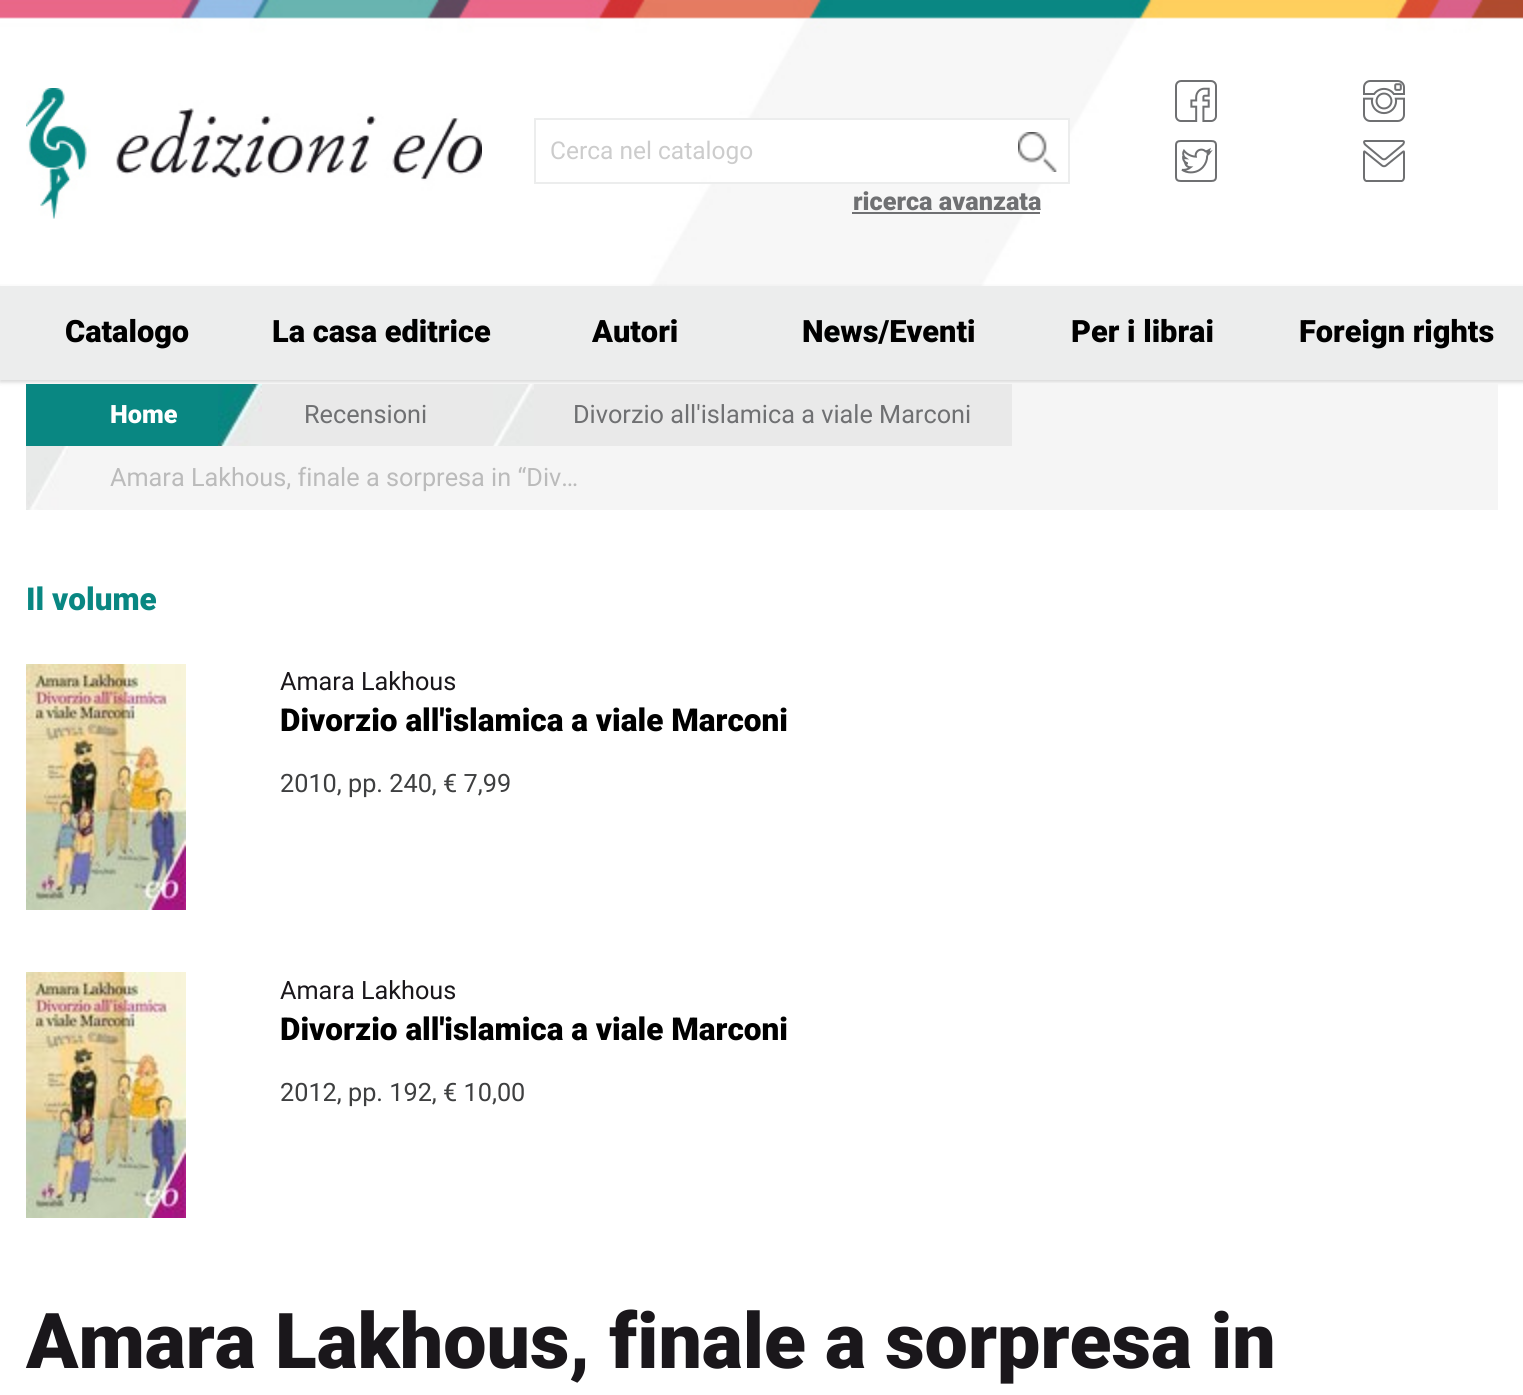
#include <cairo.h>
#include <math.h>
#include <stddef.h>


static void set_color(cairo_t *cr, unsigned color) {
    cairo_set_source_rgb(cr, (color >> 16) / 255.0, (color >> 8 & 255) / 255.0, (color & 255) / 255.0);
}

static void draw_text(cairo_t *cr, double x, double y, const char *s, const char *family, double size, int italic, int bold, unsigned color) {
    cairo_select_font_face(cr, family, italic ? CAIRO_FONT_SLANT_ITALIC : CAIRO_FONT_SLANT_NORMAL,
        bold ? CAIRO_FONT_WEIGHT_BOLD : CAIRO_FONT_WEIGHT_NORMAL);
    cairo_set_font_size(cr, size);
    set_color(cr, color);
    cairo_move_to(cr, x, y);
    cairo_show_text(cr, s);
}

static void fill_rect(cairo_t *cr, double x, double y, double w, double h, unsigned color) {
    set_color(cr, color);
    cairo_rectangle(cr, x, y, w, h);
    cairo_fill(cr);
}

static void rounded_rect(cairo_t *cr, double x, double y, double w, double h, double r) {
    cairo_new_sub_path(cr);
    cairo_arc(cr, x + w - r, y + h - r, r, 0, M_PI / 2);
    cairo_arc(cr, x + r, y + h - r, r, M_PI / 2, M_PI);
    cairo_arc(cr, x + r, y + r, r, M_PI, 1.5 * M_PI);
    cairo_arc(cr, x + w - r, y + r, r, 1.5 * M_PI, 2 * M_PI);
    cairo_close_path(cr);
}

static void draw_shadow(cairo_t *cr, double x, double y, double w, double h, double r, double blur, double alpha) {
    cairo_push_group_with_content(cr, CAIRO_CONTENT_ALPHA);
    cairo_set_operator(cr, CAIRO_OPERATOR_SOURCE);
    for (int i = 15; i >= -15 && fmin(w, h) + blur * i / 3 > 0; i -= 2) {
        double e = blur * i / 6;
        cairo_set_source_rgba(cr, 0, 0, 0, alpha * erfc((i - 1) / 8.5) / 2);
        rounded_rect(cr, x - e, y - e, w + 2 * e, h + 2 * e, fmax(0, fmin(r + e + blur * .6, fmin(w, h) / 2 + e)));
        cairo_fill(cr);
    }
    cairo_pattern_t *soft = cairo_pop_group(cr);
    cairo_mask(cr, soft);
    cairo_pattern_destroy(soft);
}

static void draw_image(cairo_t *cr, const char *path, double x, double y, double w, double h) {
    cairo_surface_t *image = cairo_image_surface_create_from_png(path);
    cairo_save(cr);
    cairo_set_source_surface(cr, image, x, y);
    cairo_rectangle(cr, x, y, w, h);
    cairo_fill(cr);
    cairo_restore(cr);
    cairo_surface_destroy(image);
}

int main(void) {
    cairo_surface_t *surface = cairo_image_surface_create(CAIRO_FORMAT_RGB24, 1523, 1395);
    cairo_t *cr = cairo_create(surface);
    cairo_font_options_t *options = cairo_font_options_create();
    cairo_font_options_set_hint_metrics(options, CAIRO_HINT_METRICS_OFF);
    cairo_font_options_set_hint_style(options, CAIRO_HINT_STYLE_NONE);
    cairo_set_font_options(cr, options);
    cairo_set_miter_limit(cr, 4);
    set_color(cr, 0xFFFFFF);
    cairo_paint(cr);
    draw_image(cr, "assets/img1.png", 0, 0, 1523, 286);
    draw_image(cr, "assets/img2.png", 26, 88, 456, 131);
    fill_rect(cr, 711, 120, 357, 62, 0xFFFFFF);
    fill_rect(cr, 534, 118, 536, 2, 0xECEDED);
    fill_rect(cr, 534, 182, 422, 2, 0xECEDED);
    fill_rect(cr, 534, 118, 2, 66, 0xECEDED);
    draw_text(cr, 550, 159, "Cerca nel catalogo", "Roboto", 24.5, 0, 0, 0xCCCCCC);
    draw_image(cr, "assets/img3.png", 1018, 132, 39, 40);
    fill_rect(cr, 1068, 118, 2, 66, 0xECEDED);
    fill_rect(cr, 956, 182, 114, 2, 0xECEDED);
    draw_text(cr, 853, 210, "ricerca avanzata", "Roboto Black", 25.25, 0, 0, 0x6F7072);
    fill_rect(cr, 852, 212, 188, 2, 0x6F7072);
    draw_image(cr, "assets/img4.png", 1175, 80, 42, 42);
    draw_image(cr, "assets/img5.png", 1175, 140, 42, 42);
    draw_image(cr, "assets/img6.png", 1363, 80, 42, 42);
    draw_image(cr, "assets/img7.png", 1363, 140, 42, 42);
    set_color(cr, 0x000000);
    draw_shadow(cr, 0, 288, 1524, 94, 0, 2, 0.12);
    draw_shadow(cr, 0, 288, 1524, 94, 0, 3, 0.06);
    fill_rect(cr, 0, 286, 1523, 94, 0xECEDED);
    draw_text(cr, 65, 342, "Catalogo", "Roboto Black", 30.75, 0, 0, 0x000000);
    draw_text(cr, 272, 342, "La casa editrice", "Roboto Black", 30.75, 0, 0, 0x000000);
    draw_text(cr, 592, 342, "Autori", "Roboto Black", 30.75, 0, 0, 0x000000);
    draw_text(cr, 802, 342, "News/Eventi", "Roboto Black", 30.75, 0, 0, 0x000000);
    draw_text(cr, 1071, 342, "Per i librai", "Roboto Black", 30.75, 0, 0, 0x000000);
    draw_text(cr, 1299, 342, "Foreign rights", "Roboto Black", 30.75, 0, 0, 0x000000);
    fill_rect(cr, 68, 384, 1430, 126, 0xF5F5F5);
    fill_rect(cr, 26, 384, 192, 62, 0x098782);
    draw_image(cr, "assets/img8.png", 218, 384, 44, 62);
    draw_text(cr, 110, 423, "Home", "Roboto Black", 25.25, 0, 0, 0xFFFFFF);
    fill_rect(cr, 262, 384, 750, 62, 0xE9E9E9);
    draw_text(cr, 304, 423, "Recensioni", "Roboto", 25.25, 0, 0, 0x6F7072);
    draw_image(cr, "assets/img9.png", 493, 384, 41, 62);
    draw_text(cr, 573, 423, "Divorzio all'islamica a viale Marconi", "Roboto", 25.25, 0, 0, 0x6F7072);
    draw_image(cr, "assets/img10.png", 26, 446, 42, 64);
    draw_text(cr, 110, 486, "Amara Lakhous, finale a sorpresa in “Div…", "Roboto", 25.25, 0, 0, 0xBBBBBB);
    draw_text(cr, 26, 610, "Il volume", "Roboto Black", 31.5, 0, 0, 0x098782);
    draw_image(cr, "assets/img11.png", 26, 664, 160, 246);
    draw_text(cr, 280, 690, "Amara Lakhous", "Roboto", 25.25, 0, 0, 0x1A171B);
    draw_text(cr, 280, 731, "Divorzio all'islamica a viale Marconi", "Roboto Black", 31.5, 0, 0, 0x000000);
    draw_text(cr, 280, 792, "2010, pp. 240, € 7,99", "Roboto", 25.25, 0, 0, 0x3E3F40);
    draw_image(cr, "assets/img11.png", 26, 972, 160, 246);
    draw_text(cr, 280, 999, "Amara Lakhous", "Roboto", 25.25, 0, 0, 0x1A171B);
    draw_text(cr, 280, 1040, "Divorzio all'islamica a viale Marconi", "Roboto Black", 31.5, 0, 0, 0x000000);
    draw_text(cr, 280, 1101, "2012, pp. 192, € 10,00", "Roboto", 25.25, 0, 0, 0x3E3F40);
    draw_text(cr, 26, 1368, "Amara Lakhous, finale a sorpresa in", "Roboto Black", 77, 0, 0, 0x1A171B);
    cairo_surface_write_to_png(surface, "output.png");
    cairo_font_options_destroy(options);
    cairo_destroy(cr);
    cairo_surface_destroy(surface);
    return 0;
}
